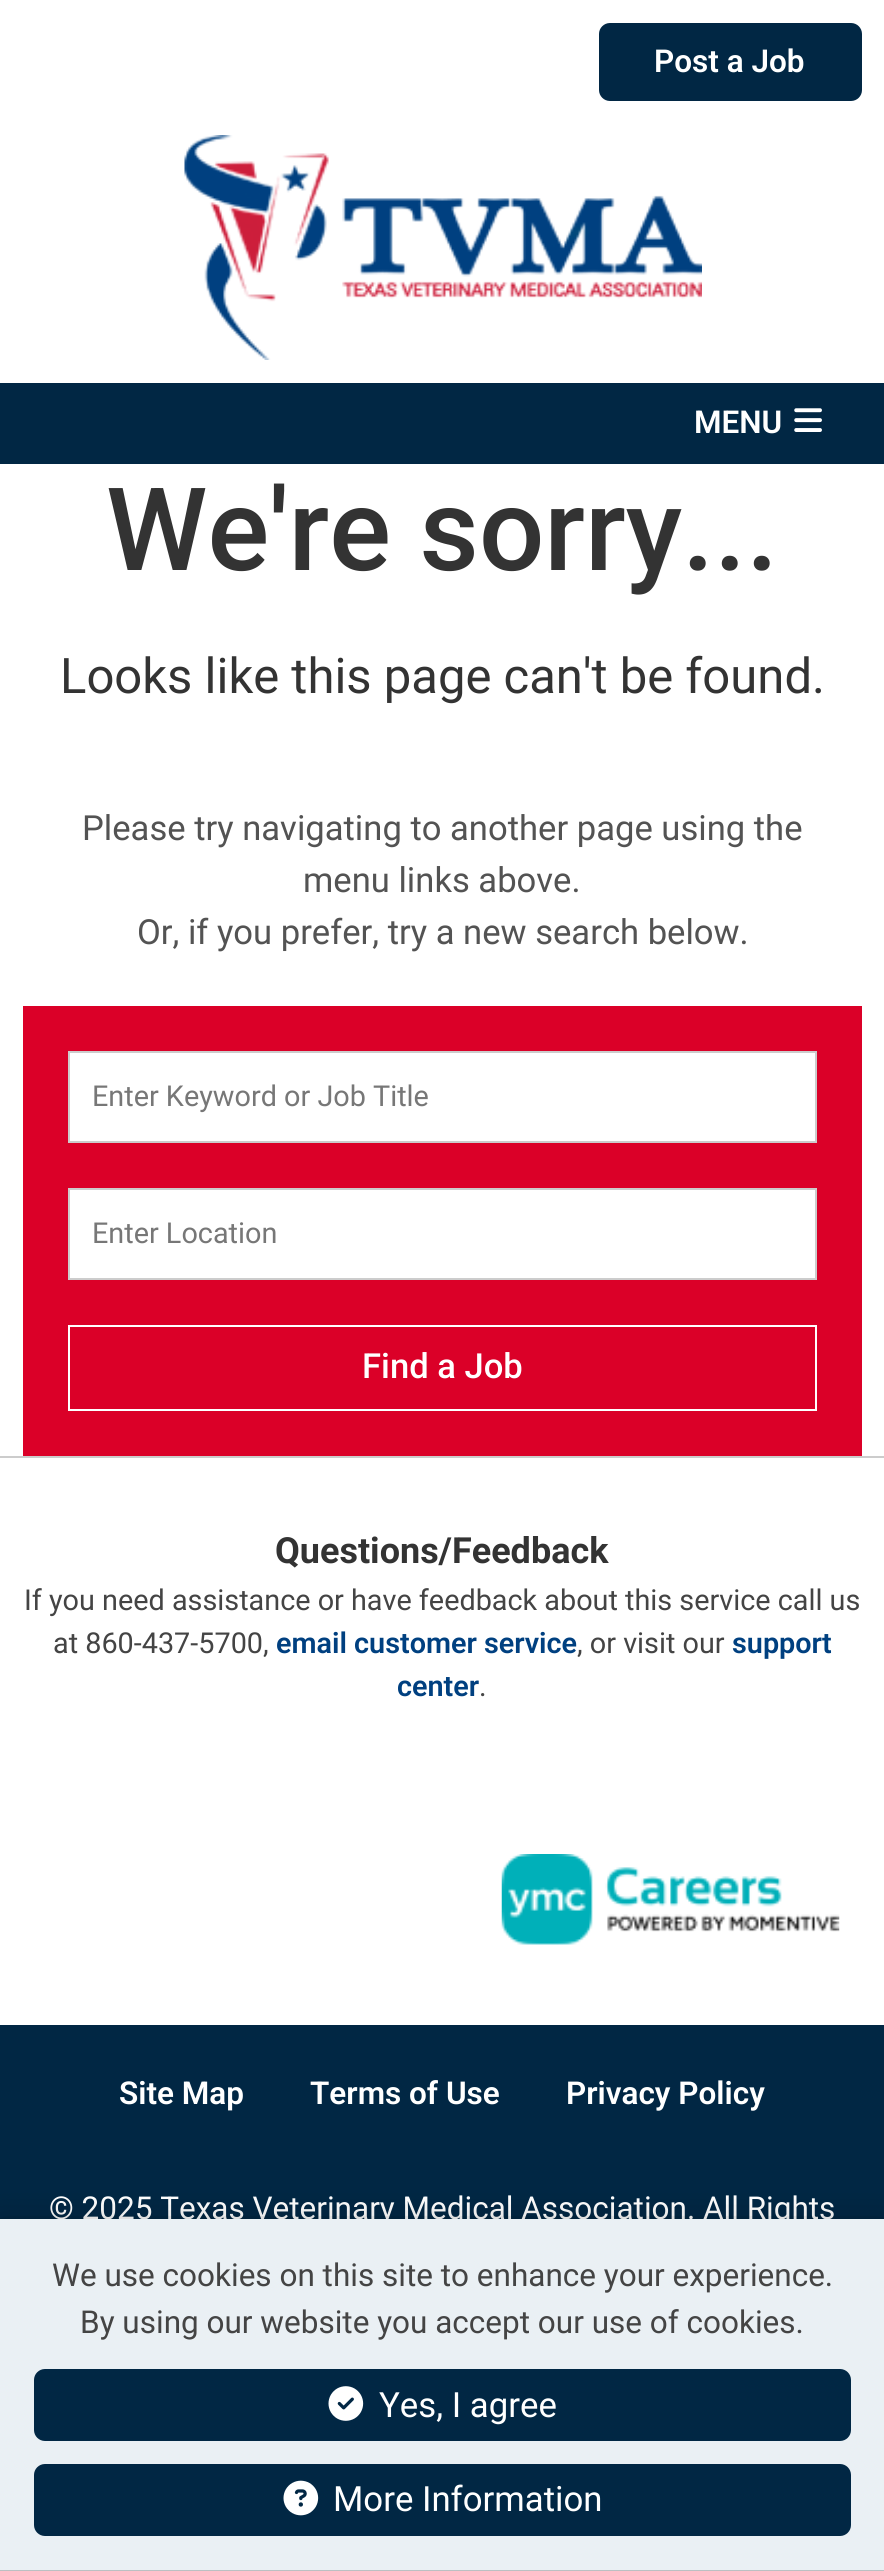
#include <cairo.h>
#include <math.h>
#include <stddef.h>


static void set_color(cairo_t *cr, unsigned color) {
    cairo_set_source_rgb(cr, (color >> 16) / 255.0, (color >> 8 & 255) / 255.0, (color & 255) / 255.0);
}

static void draw_text(cairo_t *cr, double x, double y, const char *s, const char *family, double size, int italic, int bold, unsigned color) {
    cairo_select_font_face(cr, family, italic ? CAIRO_FONT_SLANT_ITALIC : CAIRO_FONT_SLANT_NORMAL,
        bold ? CAIRO_FONT_WEIGHT_BOLD : CAIRO_FONT_WEIGHT_NORMAL);
    cairo_set_font_size(cr, size);
    set_color(cr, color);
    cairo_move_to(cr, x, y);
    cairo_show_text(cr, s);
}

static void fill_rect(cairo_t *cr, double x, double y, double w, double h, unsigned color) {
    set_color(cr, color);
    cairo_rectangle(cr, x, y, w, h);
    cairo_fill(cr);
}

static void rounded_rect(cairo_t *cr, double x, double y, double w, double h, double r) {
    cairo_new_sub_path(cr);
    cairo_arc(cr, x + w - r, y + h - r, r, 0, M_PI / 2);
    cairo_arc(cr, x + r, y + h - r, r, M_PI / 2, M_PI);
    cairo_arc(cr, x + r, y + r, r, M_PI, 1.5 * M_PI);
    cairo_arc(cr, x + w - r, y + r, r, 1.5 * M_PI, 2 * M_PI);
    cairo_close_path(cr);
}

static void draw_shadow(cairo_t *cr, double x, double y, double w, double h, double r, double blur, double alpha) {
    cairo_push_group_with_content(cr, CAIRO_CONTENT_ALPHA);
    cairo_set_operator(cr, CAIRO_OPERATOR_SOURCE);
    for (int i = 15; i >= -15 && fmin(w, h) + blur * i / 3 > 0; i -= 2) {
        double e = blur * i / 6;
        cairo_set_source_rgba(cr, 0, 0, 0, alpha * erfc((i - 1) / 8.5) / 2);
        rounded_rect(cr, x - e, y - e, w + 2 * e, h + 2 * e, fmax(0, fmin(r + e + blur * .6, fmin(w, h) / 2 + e)));
        cairo_fill(cr);
    }
    cairo_pattern_t *soft = cairo_pop_group(cr);
    cairo_mask(cr, soft);
    cairo_pattern_destroy(soft);
}

static void draw_image(cairo_t *cr, const char *path, double x, double y, double w, double h) {
    cairo_surface_t *image = cairo_image_surface_create_from_png(path);
    cairo_save(cr);
    cairo_set_source_surface(cr, image, x, y);
    cairo_rectangle(cr, x, y, w, h);
    cairo_fill(cr);
    cairo_restore(cr);
    cairo_surface_destroy(image);
}

int main(void) {
    cairo_surface_t *surface = cairo_image_surface_create(CAIRO_FORMAT_RGB24, 884, 2571);
    cairo_t *cr = cairo_create(surface);
    cairo_font_options_t *options = cairo_font_options_create();
    cairo_font_options_set_hint_metrics(options, CAIRO_HINT_METRICS_OFF);
    cairo_font_options_set_hint_style(options, CAIRO_HINT_STYLE_NONE);
    cairo_set_font_options(cr, options);
    cairo_set_miter_limit(cr, 4);
    set_color(cr, 0xFFFFFF);
    cairo_paint(cr);
    set_color(cr, 0x012744);
    rounded_rect(cr, 599, 23, 263, 78, 11);
    cairo_fill(cr);
    draw_text(cr, 654, 72, "Post a Job", "Roboto SemiBold", 31.5, 0, 0, 0xFFFFFF);
    draw_image(cr, "assets/img1.png", 184, 135, 518, 225);
    fill_rect(cr, 0, 383, 884, 81, 0x012744);
    draw_text(cr, 694, 433, "MENU", "Roboto SemiBold", 31.5, 0, 0, 0xFFFFFF);
    draw_image(cr, "assets/img2.png", 794, 408, 28, 24);
    draw_text(cr, 106, 570, "We're sorry...", "Roboto Medium", 115.25, 0, 0, 0x333333);
    draw_text(cr, 60, 693, "Looks like this page can't be found.", "Roboto", 49, 0, 0, 0x333333);
    draw_text(cr, 82, 840, "Please try navigating to another page using the", "Roboto", 34.6, 0, 0, 0x535353);
    draw_text(cr, 303, 892, "menu links above.", "Roboto", 34.6, 0, 0, 0x535353);
    draw_text(cr, 137, 944, "Or, if you prefer, try a new search below.", "Roboto", 34.6, 0, 0, 0x535353);
    fill_rect(cr, 23, 1006, 839, 450, 0xDB0028);
    set_color(cr, 0xFFFFFF);
    cairo_rectangle(cr, 69, 1052, 747, 90);
    cairo_fill_preserve(cr);
    set_color(cr, 0xCCCCCC);
    cairo_stroke(cr);
    draw_text(cr, 92, 1106, "Enter Keyword or Job Title", "Roboto", 28.8, 0, 0, 0x777777);
    set_color(cr, 0xFFFFFF);
    cairo_rectangle(cr, 69, 1189, 747, 90);
    cairo_fill_preserve(cr);
    set_color(cr, 0xCCCCCC);
    cairo_stroke(cr);
    draw_text(cr, 92, 1243, "Enter Location", "Roboto", 28.8, 0, 0, 0x777777);
    cairo_rectangle(cr, 69, 1326, 747, 84);
    set_color(cr, 0xFFFFFF);
    cairo_stroke(cr);
    draw_text(cr, 362, 1378, "Find a Job", "Roboto Medium", 34.6, 0, 0, 0xFFFFFF);
    fill_rect(cr, 0, 1456, 884, 2, 0xCCCCCC);
    draw_text(cr, 275, 1563, "Questions/Feedback", "Roboto", 36, 0, 1, 0x333333);
    draw_text(cr, 24, 1610, "If you need assistance or have feedback about this service call us", "Roboto", 28.8, 0, 0, 0x444444);
    draw_text(cr, 53, 1653, "at 860-437-5700,", "Roboto", 28.8, 0, 0, 0x444444);
    draw_text(cr, 276, 1653, "email customer service", "Roboto SemiBold", 28.8, 0, 0, 0x004080);
    draw_text(cr, 577, 1653, ", or visit our", "Roboto", 28.8, 0, 0, 0x444444);
    draw_text(cr, 732, 1653, "support", "Roboto SemiBold", 28.8, 0, 0, 0x004080);
    draw_text(cr, 397, 1696, "center", "Roboto SemiBold", 28.8, 0, 0, 0x004080);
    draw_text(cr, 479, 1696, ".", "Roboto", 28.8, 0, 0, 0x444444);
    draw_image(cr, "assets/img3.png", 501, 1854, 339, 91);
    fill_rect(cr, 0, 2025, 884, 194, 0x012744);
    draw_text(cr, 119, 2104, "Site Map", "Roboto SemiBold", 31.5, 0, 0, 0xFFFFFF);
    draw_text(cr, 310, 2104, "Terms of Use", "Roboto SemiBold", 31.5, 0, 0, 0xFFFFFF);
    draw_text(cr, 566, 2104, "Privacy Policy", "Roboto SemiBold", 31.5, 0, 0, 0xFFFFFF);
    draw_text(cr, 49, 2219, "© 2025 Texas Veterinary Medical Association. All Rights", "Roboto", 31.5, 0, 0, 0xFFFFFF);
    set_color(cr, 0x000000);
    draw_shadow(cr, 0, 2230, 884, 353, 0, 17, 0.5);
    fill_rect(cr, 0, 2219, 884, 351, 0xEAF0F4);
    fill_rect(cr, 0, 2570, 884, 1, 0xBBC0C3);
    draw_text(cr, 52, 2286, "We use cookies on this site to enhance your experience.", "Roboto", 31.5, 0, 0, 0x444444);
    draw_text(cr, 80, 2333, "By using our website you accept our use of cookies.", "Roboto", 31.5, 0, 0, 0x444444);
    set_color(cr, 0x012744);
    rounded_rect(cr, 34, 2369, 817, 72, 11);
    cairo_fill(cr);
    draw_image(cr, "assets/img4.png", 328, 2386, 36, 35);
    draw_text(cr, 379, 2417, "Yes, I agree", "Roboto", 34.75, 0, 0, 0xFFFFFF);
    set_color(cr, 0x012744);
    rounded_rect(cr, 34, 2464, 817, 72, 11);
    cairo_fill(cr);
    draw_image(cr, "assets/img5.png", 283, 2480, 36, 36);
    draw_text(cr, 333, 2511, "More Information", "Roboto", 34.75, 0, 0, 0xFFFFFF);
    cairo_surface_write_to_png(surface, "output.png");
    cairo_font_options_destroy(options);
    cairo_destroy(cr);
    cairo_surface_destroy(surface);
    return 0;
}
